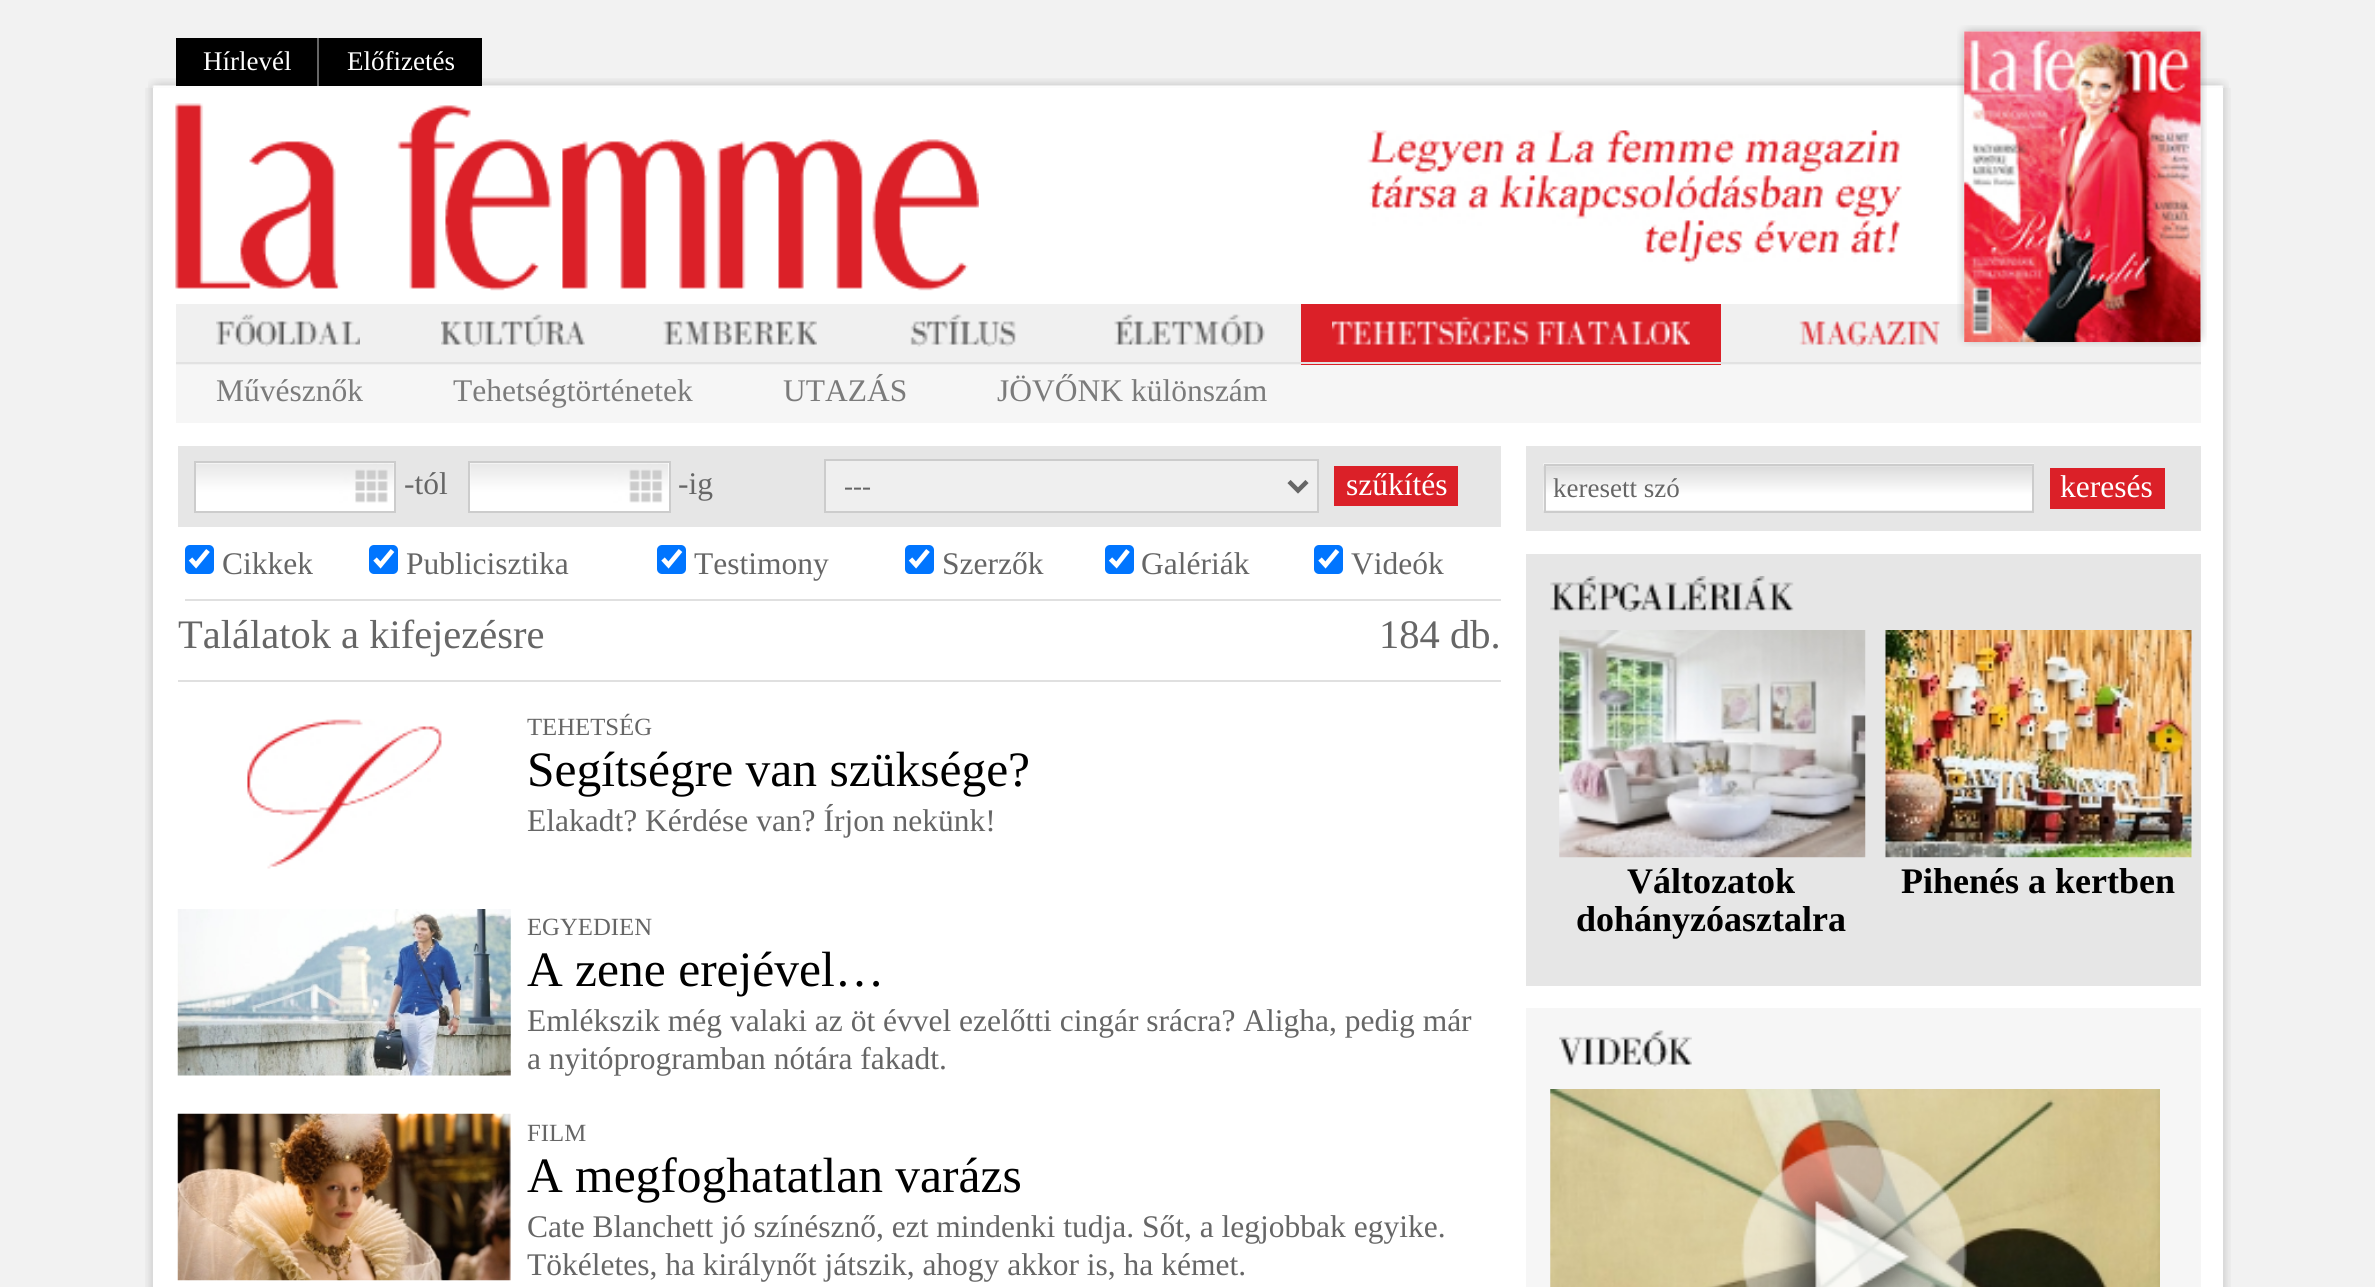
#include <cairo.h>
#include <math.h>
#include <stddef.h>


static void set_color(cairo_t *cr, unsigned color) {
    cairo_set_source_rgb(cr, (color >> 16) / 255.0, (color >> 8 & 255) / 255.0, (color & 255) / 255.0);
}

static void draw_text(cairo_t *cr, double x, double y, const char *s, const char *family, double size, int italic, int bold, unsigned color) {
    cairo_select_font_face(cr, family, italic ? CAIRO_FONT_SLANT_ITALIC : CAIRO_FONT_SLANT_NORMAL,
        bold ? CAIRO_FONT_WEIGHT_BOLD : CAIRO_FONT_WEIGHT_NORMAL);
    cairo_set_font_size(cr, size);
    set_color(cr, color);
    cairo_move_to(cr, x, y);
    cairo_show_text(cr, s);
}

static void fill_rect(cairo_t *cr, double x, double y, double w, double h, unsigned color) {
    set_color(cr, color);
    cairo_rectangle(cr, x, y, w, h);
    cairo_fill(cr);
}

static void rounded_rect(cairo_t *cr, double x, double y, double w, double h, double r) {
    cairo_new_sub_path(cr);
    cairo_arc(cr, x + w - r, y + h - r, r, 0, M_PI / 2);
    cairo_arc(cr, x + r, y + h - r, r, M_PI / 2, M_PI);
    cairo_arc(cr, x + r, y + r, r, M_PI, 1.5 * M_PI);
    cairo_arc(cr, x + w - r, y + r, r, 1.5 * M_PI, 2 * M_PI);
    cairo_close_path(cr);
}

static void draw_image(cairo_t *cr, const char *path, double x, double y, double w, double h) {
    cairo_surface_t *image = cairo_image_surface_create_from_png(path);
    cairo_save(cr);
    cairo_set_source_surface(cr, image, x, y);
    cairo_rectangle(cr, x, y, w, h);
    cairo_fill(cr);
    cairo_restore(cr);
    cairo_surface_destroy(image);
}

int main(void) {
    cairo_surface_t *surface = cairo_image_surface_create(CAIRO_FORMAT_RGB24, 2375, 1287);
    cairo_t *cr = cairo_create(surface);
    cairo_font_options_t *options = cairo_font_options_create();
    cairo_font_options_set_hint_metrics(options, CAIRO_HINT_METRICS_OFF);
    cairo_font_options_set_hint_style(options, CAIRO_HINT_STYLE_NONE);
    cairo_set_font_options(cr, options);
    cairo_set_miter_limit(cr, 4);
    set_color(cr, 0xF2F2F2);
    cairo_paint(cr);
    draw_image(cr, "assets/img1.png", 148, 78, 2081, 10);
    fill_rect(cr, 176, 38, 306, 48, 0x000000);
    draw_text(cr, 203, 70, "Hírlevél", "Liberation Serif", 27, 0, 0, 0xFFFFFF);
    fill_rect(cr, 317, 38, 2, 48, 0x666666);
    draw_text(cr, 347, 70, "Előfizetés", "Liberation Serif", 27, 0, 0, 0xFFFFFF);
    draw_image(cr, "assets/img2.png", 145, 87, 8, 1200);
    fill_rect(cr, 153, 88, 2070, 1199, 0xFFFFFF);
    draw_image(cr, "assets/img3.png", 175, 103, 804, 188);
    draw_image(cr, "assets/img4.png", 1367, 130, 535, 134);
    fill_rect(cr, 176, 304, 2025, 61, 0xF0F0F0);
    draw_image(cr, "assets/img5.png", 1957, 25, 250, 322);
    draw_image(cr, "assets/img6.png", 1964, 31, 237, 311);
    fill_rect(cr, 176, 362, 1125, 2, 0xE2E2E2);
    draw_image(cr, "assets/img7.png", 216, 314, 144, 33);
    fill_rect(cr, 1301, 304, 420, 61, 0xDB2028);
    fill_rect(cr, 1301, 362, 900, 2, 0xE2E2E2);
    draw_image(cr, "assets/img8.png", 1332, 316, 358, 29);
    draw_image(cr, "assets/img9.png", 441, 314, 144, 33);
    draw_image(cr, "assets/img10.png", 663, 321, 154, 24);
    draw_image(cr, "assets/img11.png", 910, 314, 106, 33);
    draw_image(cr, "assets/img12.png", 1114, 314, 151, 33);
    draw_image(cr, "assets/img13.png", 1799, 321, 141, 26);
    fill_rect(cr, 176, 365, 2025, 58, 0xF6F6F6);
    draw_text(cr, 216, 401, "Művésznők", "Liberation Serif", 31.5, 0, 0, 0x7B7B7B);
    draw_text(cr, 453, 401, "Tehetségtörténetek", "Liberation Serif", 31.5, 0, 0, 0x7B7B7B);
    draw_text(cr, 783, 401, "UTAZÁS", "Liberation Serif", 31.5, 0, 0, 0x7B7B7B);
    draw_text(cr, 997, 401, "JÖVŐNK különszám", "Liberation Serif", 31.5, 0, 0, 0x7B7B7B);
    fill_rect(cr, 178, 680, 1323, 2, 0xE0E0E0);
    fill_rect(cr, 178, 446, 1323, 81, 0xE6E6E6);
    fill_rect(cr, 196, 463, 198, 48, 0xFFFFFF);
    draw_image(cr, "assets/img14.png", 196, 463, 198, 40);
    cairo_rectangle(cr, 195, 462, 200, 50);
    set_color(cr, 0xCCCCCC);
    cairo_stroke(cr);
    draw_text(cr, 404, 494, "-tól", "Liberation Serif", 31.5, 0, 0, 0x666666);
    fill_rect(cr, 470, 463, 199, 48, 0xFFFFFF);
    draw_image(cr, "assets/img15.png", 470, 463, 199, 40);
    cairo_rectangle(cr, 469, 462, 201, 50);
    set_color(cr, 0xCCCCCC);
    cairo_stroke(cr);
    draw_text(cr, 678, 494, "-ig", "Liberation Serif", 31.5, 0, 0, 0x666666);
    set_color(cr, 0xEFEFEF);
    cairo_rectangle(cr, 825, 460, 493, 52);
    cairo_fill_preserve(cr);
    set_color(cr, 0xCCCCCC);
    cairo_stroke(cr);
    cairo_new_path(cr);
    cairo_move_to(cr, 1289, 481.5);
    cairo_line_to(cr, 1298, 490.5);
    cairo_line_to(cr, 1307, 481.5);
    set_color(cr, 0x666666);
    cairo_set_line_width(cr, 4.5);
    cairo_stroke(cr);
    draw_text(cr, 844, 495, "---", "Liberation Serif", 27, 0, 0, 0x666666);
    fill_rect(cr, 1334, 466, 124, 40, 0xDB2028);
    draw_text(cr, 1346, 495, "szűkítés", "Liberation Serif", 31.5, 0, 0, 0xFFFFFF);
    fill_rect(cr, 185, 599, 1316, 2, 0xE0E0E0);
    set_color(cr, 0x0075FF);
    rounded_rect(cr, 185, 545, 29, 29, 5);
    cairo_fill(cr);
    cairo_new_path(cr);
    cairo_move_to(cr, 190.5, 559);
    cairo_line_to(cr, 196, 565);
    cairo_line_to(cr, 208, 550.5);
    set_color(cr, 0xFFFFFF);
    cairo_set_line_width(cr, 4.7);
    cairo_stroke(cr);
    draw_text(cr, 222, 574, "Cikkek", "Liberation Serif", 31.5, 0, 0, 0x666666);
    set_color(cr, 0x0075FF);
    rounded_rect(cr, 369, 545, 29, 29, 5);
    cairo_fill(cr);
    cairo_new_path(cr);
    cairo_move_to(cr, 375, 559);
    cairo_line_to(cr, 380.5, 565);
    cairo_line_to(cr, 392.5, 550.5);
    set_color(cr, 0xFFFFFF);
    cairo_stroke(cr);
    draw_text(cr, 406, 574, "Publicisztika", "Liberation Serif", 31.5, 0, 0, 0x666666);
    set_color(cr, 0x0075FF);
    rounded_rect(cr, 657, 545, 29, 29, 5);
    cairo_fill(cr);
    cairo_new_path(cr);
    cairo_move_to(cr, 663, 559);
    cairo_line_to(cr, 668.5, 565);
    cairo_line_to(cr, 680.5, 550.5);
    set_color(cr, 0xFFFFFF);
    cairo_stroke(cr);
    draw_text(cr, 694, 574, "Testimony", "Liberation Serif", 31.5, 0, 0, 0x666666);
    set_color(cr, 0x0075FF);
    rounded_rect(cr, 905, 545, 29, 29, 5);
    cairo_fill(cr);
    cairo_new_path(cr);
    cairo_move_to(cr, 910.5, 559);
    cairo_line_to(cr, 916, 565);
    cairo_line_to(cr, 928, 550.5);
    set_color(cr, 0xFFFFFF);
    cairo_stroke(cr);
    draw_text(cr, 942, 574, "Szerzők", "Liberation Serif", 31.5, 0, 0, 0x666666);
    set_color(cr, 0x0075FF);
    rounded_rect(cr, 1105, 545, 29, 29, 5);
    cairo_fill(cr);
    cairo_new_path(cr);
    cairo_move_to(cr, 1110.5, 559);
    cairo_line_to(cr, 1116.5, 565);
    cairo_line_to(cr, 1128, 550.5);
    set_color(cr, 0xFFFFFF);
    cairo_stroke(cr);
    draw_text(cr, 1141, 574, "Galériák", "Liberation Serif", 31.5, 0, 0, 0x666666);
    set_color(cr, 0x0075FF);
    rounded_rect(cr, 1314, 545, 29, 29, 5);
    cairo_fill(cr);
    cairo_new_path(cr);
    cairo_move_to(cr, 1320, 559);
    cairo_line_to(cr, 1325.5, 565);
    cairo_line_to(cr, 1337.5, 550.5);
    set_color(cr, 0xFFFFFF);
    cairo_stroke(cr);
    draw_text(cr, 1351, 574, "Videók", "Liberation Serif", 31.5, 0, 0, 0x666666);
    draw_text(cr, 178, 648, "Találatok a kifejezésre", "Liberation Serif", 40.5, 0, 0, 0x666666);
    draw_text(cr, 1379, 648, "184 db.", "Liberation Serif", 40.5, 0, 0, 0x666666);
    draw_image(cr, "assets/img16.png", 247, 719, 195, 150);
    draw_text(cr, 527, 735, "TEHETSÉG", "Liberation Serif", 24.75, 0, 0, 0x666666);
    draw_text(cr, 527, 786, "Segítségre van szüksége?", "Liberation Serif", 49.5, 0, 0, 0x000000);
    draw_text(cr, 527, 831, "Elakadt? Kérdése van? Írjon nekünk!", "Liberation Serif", 31.5, 0, 0, 0x666666);
    draw_image(cr, "assets/img17.png", 177, 909, 334, 167);
    draw_text(cr, 527, 935, "EGYEDIEN", "Liberation Serif", 24.75, 0, 0, 0x666666);
    draw_text(cr, 527, 986, "A zene erejével…", "Liberation Serif", 49.5, 0, 0, 0x000000);
    draw_text(cr, 527, 1031, "Emlékszik még valaki az öt évvel ezelőtti cingár srácra? Aligha, pedig már", "Liberation Serif", 31.5, 0, 0, 0x666666);
    draw_text(cr, 527, 1069, "a nyitóprogramban nótára fakadt.", "Liberation Serif", 31.5, 0, 0, 0x666666);
    draw_image(cr, "assets/img18.png", 177, 1113, 334, 168);
    draw_text(cr, 527, 1141, "FILM", "Liberation Serif", 24.75, 0, 0, 0x666666);
    draw_text(cr, 527, 1192, "A megfoghatatlan varázs", "Liberation Serif", 49.5, 0, 0, 0x000000);
    draw_text(cr, 527, 1237, "Cate Blanchett jó színésznő, ezt mindenki tudja. Sőt, a legjobbak egyike.", "Liberation Serif", 31.5, 0, 0, 0x666666);
    draw_text(cr, 527, 1275, "Tökéletes, ha királynőt játszik, ahogy akkor is, ha kémet.", "Liberation Serif", 31.5, 0, 0, 0x666666);
    fill_rect(cr, 1526, 446, 675, 85, 0xE6E6E6);
    draw_image(cr, "assets/img19.png", 1543, 463, 491, 50);
    cairo_rectangle(cr, 1545, 465, 488, 47);
    set_color(cr, 0xCCCCCC);
    cairo_set_line_width(cr, 2);
    cairo_stroke(cr);
    draw_text(cr, 1553, 497, "keresett szó", "Liberation Serif", 27, 0, 0, 0x666666);
    fill_rect(cr, 2050, 468, 115, 41, 0xDB2028);
    draw_text(cr, 2060, 497, "keresés", "Liberation Serif", 31.5, 0, 0, 0xFFFFFF);
    fill_rect(cr, 1526, 554, 675, 432, 0xE6E6E6);
    draw_image(cr, "assets/img20.png", 1550, 576, 244, 36);
    draw_image(cr, "assets/img21.png", 1559, 630, 307, 228);
    draw_text(cr, 1627, 893, "Változatok", "Liberation Serif", 36, 0, 1, 0x000000);
    draw_text(cr, 1576, 931, "dohányzóasztalra", "Liberation Serif", 36, 0, 1, 0x000000);
    draw_image(cr, "assets/img22.png", 1885, 630, 307, 228);
    draw_text(cr, 1901, 893, "Pihenés a kertben", "Liberation Serif", 36, 0, 1, 0x000000);
    fill_rect(cr, 1526, 1008, 675, 279, 0xF6F6F6);
    draw_image(cr, "assets/img23.png", 1559, 1030, 133, 37);
    draw_image(cr, "assets/img24.png", 1550, 1089, 610, 198);
    draw_image(cr, "assets/img25.png", 1741, 1144, 226, 143);
    draw_image(cr, "assets/img26.png", 2223, 87, 8, 1200);
    cairo_surface_write_to_png(surface, "output.png");
    cairo_font_options_destroy(options);
    cairo_destroy(cr);
    cairo_surface_destroy(surface);
    return 0;
}
